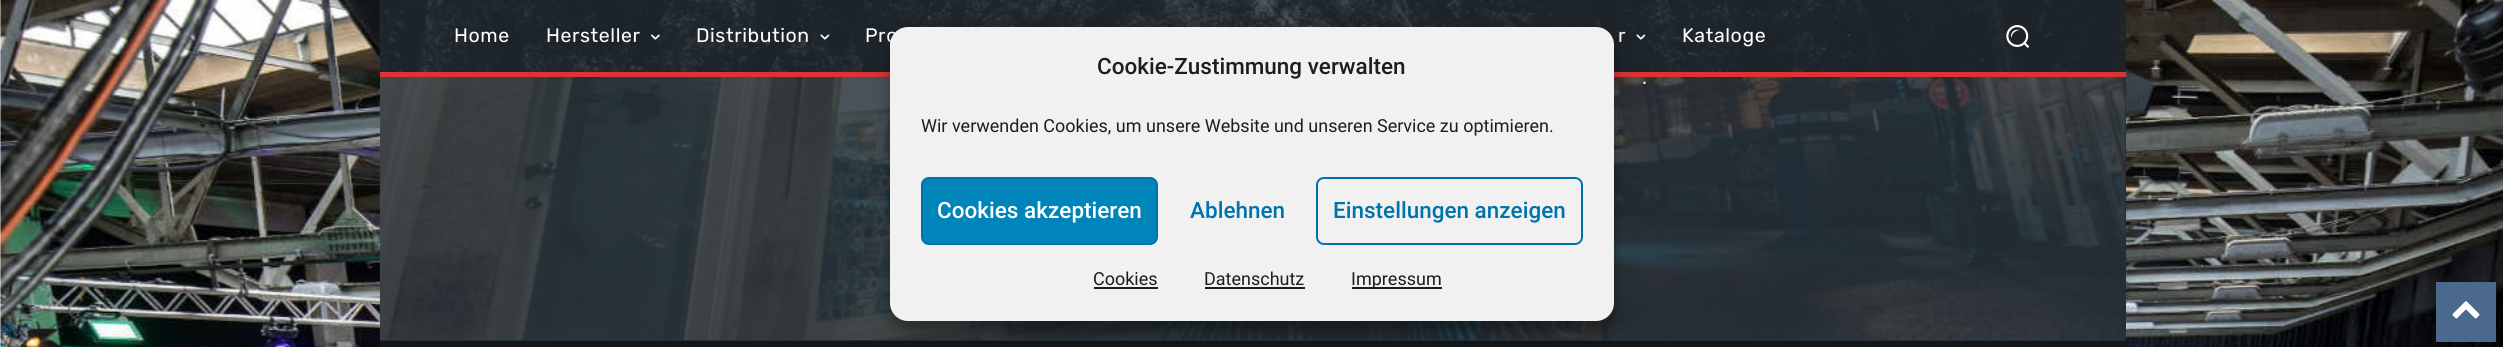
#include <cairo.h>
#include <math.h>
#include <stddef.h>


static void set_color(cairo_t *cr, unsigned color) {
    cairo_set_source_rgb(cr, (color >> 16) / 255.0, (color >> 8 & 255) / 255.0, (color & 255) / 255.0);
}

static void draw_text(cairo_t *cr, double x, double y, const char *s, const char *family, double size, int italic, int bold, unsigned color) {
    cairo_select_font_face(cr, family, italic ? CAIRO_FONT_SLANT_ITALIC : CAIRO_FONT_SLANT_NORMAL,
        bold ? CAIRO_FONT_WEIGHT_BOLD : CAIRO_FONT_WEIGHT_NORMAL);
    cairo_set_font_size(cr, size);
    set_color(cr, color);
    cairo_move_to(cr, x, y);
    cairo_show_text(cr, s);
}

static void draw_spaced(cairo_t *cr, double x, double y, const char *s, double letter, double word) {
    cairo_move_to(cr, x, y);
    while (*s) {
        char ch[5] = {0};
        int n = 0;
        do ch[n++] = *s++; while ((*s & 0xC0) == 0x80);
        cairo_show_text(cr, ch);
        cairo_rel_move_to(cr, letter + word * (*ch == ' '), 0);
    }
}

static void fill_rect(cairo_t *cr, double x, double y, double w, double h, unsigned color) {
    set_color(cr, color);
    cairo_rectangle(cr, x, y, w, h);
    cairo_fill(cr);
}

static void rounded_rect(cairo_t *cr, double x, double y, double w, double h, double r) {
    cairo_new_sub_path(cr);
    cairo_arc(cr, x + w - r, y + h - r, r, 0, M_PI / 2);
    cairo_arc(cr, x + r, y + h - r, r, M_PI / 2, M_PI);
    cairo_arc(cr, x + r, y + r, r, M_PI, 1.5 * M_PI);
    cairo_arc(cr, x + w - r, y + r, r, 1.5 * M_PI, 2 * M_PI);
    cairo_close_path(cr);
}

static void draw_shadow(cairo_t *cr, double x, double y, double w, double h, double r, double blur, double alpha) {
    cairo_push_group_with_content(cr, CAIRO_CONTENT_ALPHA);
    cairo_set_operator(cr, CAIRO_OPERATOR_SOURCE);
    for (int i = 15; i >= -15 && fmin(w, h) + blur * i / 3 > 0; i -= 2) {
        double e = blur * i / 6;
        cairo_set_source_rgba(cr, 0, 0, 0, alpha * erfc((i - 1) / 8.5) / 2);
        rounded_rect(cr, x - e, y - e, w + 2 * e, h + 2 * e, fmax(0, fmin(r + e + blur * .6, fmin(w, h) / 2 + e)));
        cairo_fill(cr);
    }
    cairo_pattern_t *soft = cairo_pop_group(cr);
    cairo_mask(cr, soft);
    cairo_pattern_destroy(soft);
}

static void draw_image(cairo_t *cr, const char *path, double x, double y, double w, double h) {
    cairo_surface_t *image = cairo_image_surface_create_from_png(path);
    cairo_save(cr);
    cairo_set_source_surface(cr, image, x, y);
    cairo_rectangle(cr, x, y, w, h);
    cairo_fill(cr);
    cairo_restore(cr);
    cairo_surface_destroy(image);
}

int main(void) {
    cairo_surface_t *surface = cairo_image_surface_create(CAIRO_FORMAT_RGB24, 2503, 347);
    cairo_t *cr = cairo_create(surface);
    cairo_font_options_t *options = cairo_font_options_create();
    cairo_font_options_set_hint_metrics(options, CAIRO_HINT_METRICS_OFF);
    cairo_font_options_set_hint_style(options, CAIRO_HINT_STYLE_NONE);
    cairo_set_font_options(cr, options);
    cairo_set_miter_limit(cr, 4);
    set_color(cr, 0xFFFFFF);
    cairo_paint(cr);
    draw_image(cr, "assets/img1.png", 0, 0, 2503, 347);
    fill_rect(cr, 380, 77, 1746, 264, 0x232D35);
    draw_image(cr, "assets/img7.png", 379, 0, 1747, 340);
    fill_rect(cr, 380, 0, 1746, 72, 0x232D35);
    draw_image(cr, "assets/img2.png", 380, 0, 1746, 72);
    cairo_select_font_face(cr, "Rubik", CAIRO_FONT_SLANT_NORMAL, CAIRO_FONT_WEIGHT_NORMAL);
    cairo_set_font_size(cr, 19.5);
    set_color(cr, 0xFFFFFF);
    draw_spaced(cr, 454, 42, "Home", 0.6, 0);
    draw_spaced(cr, 546, 42, "Hersteller", 0.6, 0);
    draw_image(cr, "assets/img3.png", 651, 34, 9, 6);
    draw_spaced(cr, 696, 42, "Distribution", 0.6, 0);
    draw_image(cr, "assets/img4.png", 820, 34, 10, 6);
    draw_spaced(cr, 865, 42, "Pro", 0.6, 0);
    draw_spaced(cr, 1618, 42, "r", 0.6, 0);
    draw_image(cr, "assets/img5.png", 1636, 34, 10, 6);
    draw_spaced(cr, 1682, 42, "Kataloge", 0.6, 0);
    draw_image(cr, "assets/img6.png", 2006, 25, 24, 23);
    fill_rect(cr, 380, 72, 1746, 5, 0xDD3333);
    draw_text(cr, 1642, 84, ".", "Rubik", 19.5, 0, 0, 0xEAEAEA);
    fill_rect(cr, 380, 341, 1746, 6, 0x11171C);
    set_color(cr, 0x000000);
    draw_shadow(cr, 890, 36, 724, 294, 18, 4.5, 0.23);
    draw_shadow(cr, 890, 42, 724, 294, 18, 15, 0.19);
    set_color(cr, 0xF1F1F1);
    rounded_rect(cr, 891, 28, 722, 292, 17);
    cairo_fill_preserve(cr);
    cairo_stroke(cr);
    draw_text(cr, 1097, 74, "Cookie-Zustimmung verwalten", "Roboto Medium", 22.5, 0, 0, 0x191E23);
    draw_text(cr, 921, 132, "Wir verwenden Cookies, um unsere Website und unseren Service zu optimieren.", "Roboto", 18, 0, 0, 0x191E23);
    set_color(cr, 0x0085BA);
    rounded_rect(cr, 922, 178, 235, 66, 7);
    cairo_fill_preserve(cr);
    set_color(cr, 0x0073AA);
    cairo_stroke(cr);
    draw_text(cr, 937, 218, "Cookies akzeptieren", "Roboto Medium", 22.5, 0, 0, 0xFFFFFF);
    draw_text(cr, 1190, 218, "Ablehnen", "Roboto Medium", 22.5, 0, 0, 0x0073AA);
    rounded_rect(cr, 1317, 178, 265, 66, 7);
    cairo_stroke(cr);
    draw_text(cr, 1333, 218, "Einstellungen anzeigen", "Roboto Medium", 22.5, 0, 0, 0x0073AA);
    draw_text(cr, 1093, 285, "Cookies", "Roboto", 18, 0, 0, 0x191E23);
    fill_rect(cr, 1094, 287, 64, 2, 0x191E23);
    draw_text(cr, 1204, 285, "Datenschutz", "Roboto", 18, 0, 0, 0x191E23);
    fill_rect(cr, 1205, 287, 100, 2, 0x191E23);
    fill_rect(cr, 1352, 287, 90, 2, 0x191E23);
    draw_text(cr, 1351, 285, "Impressum", "Roboto", 18, 0, 0, 0x191E23);
    fill_rect(cr, 2436, 282, 60, 60, 0x4B698D);
    draw_image(cr, "assets/img8.png", 2452, 301, 28, 18);
    cairo_surface_write_to_png(surface, "output.png");
    cairo_font_options_destroy(options);
    cairo_destroy(cr);
    cairo_surface_destroy(surface);
    return 0;
}
